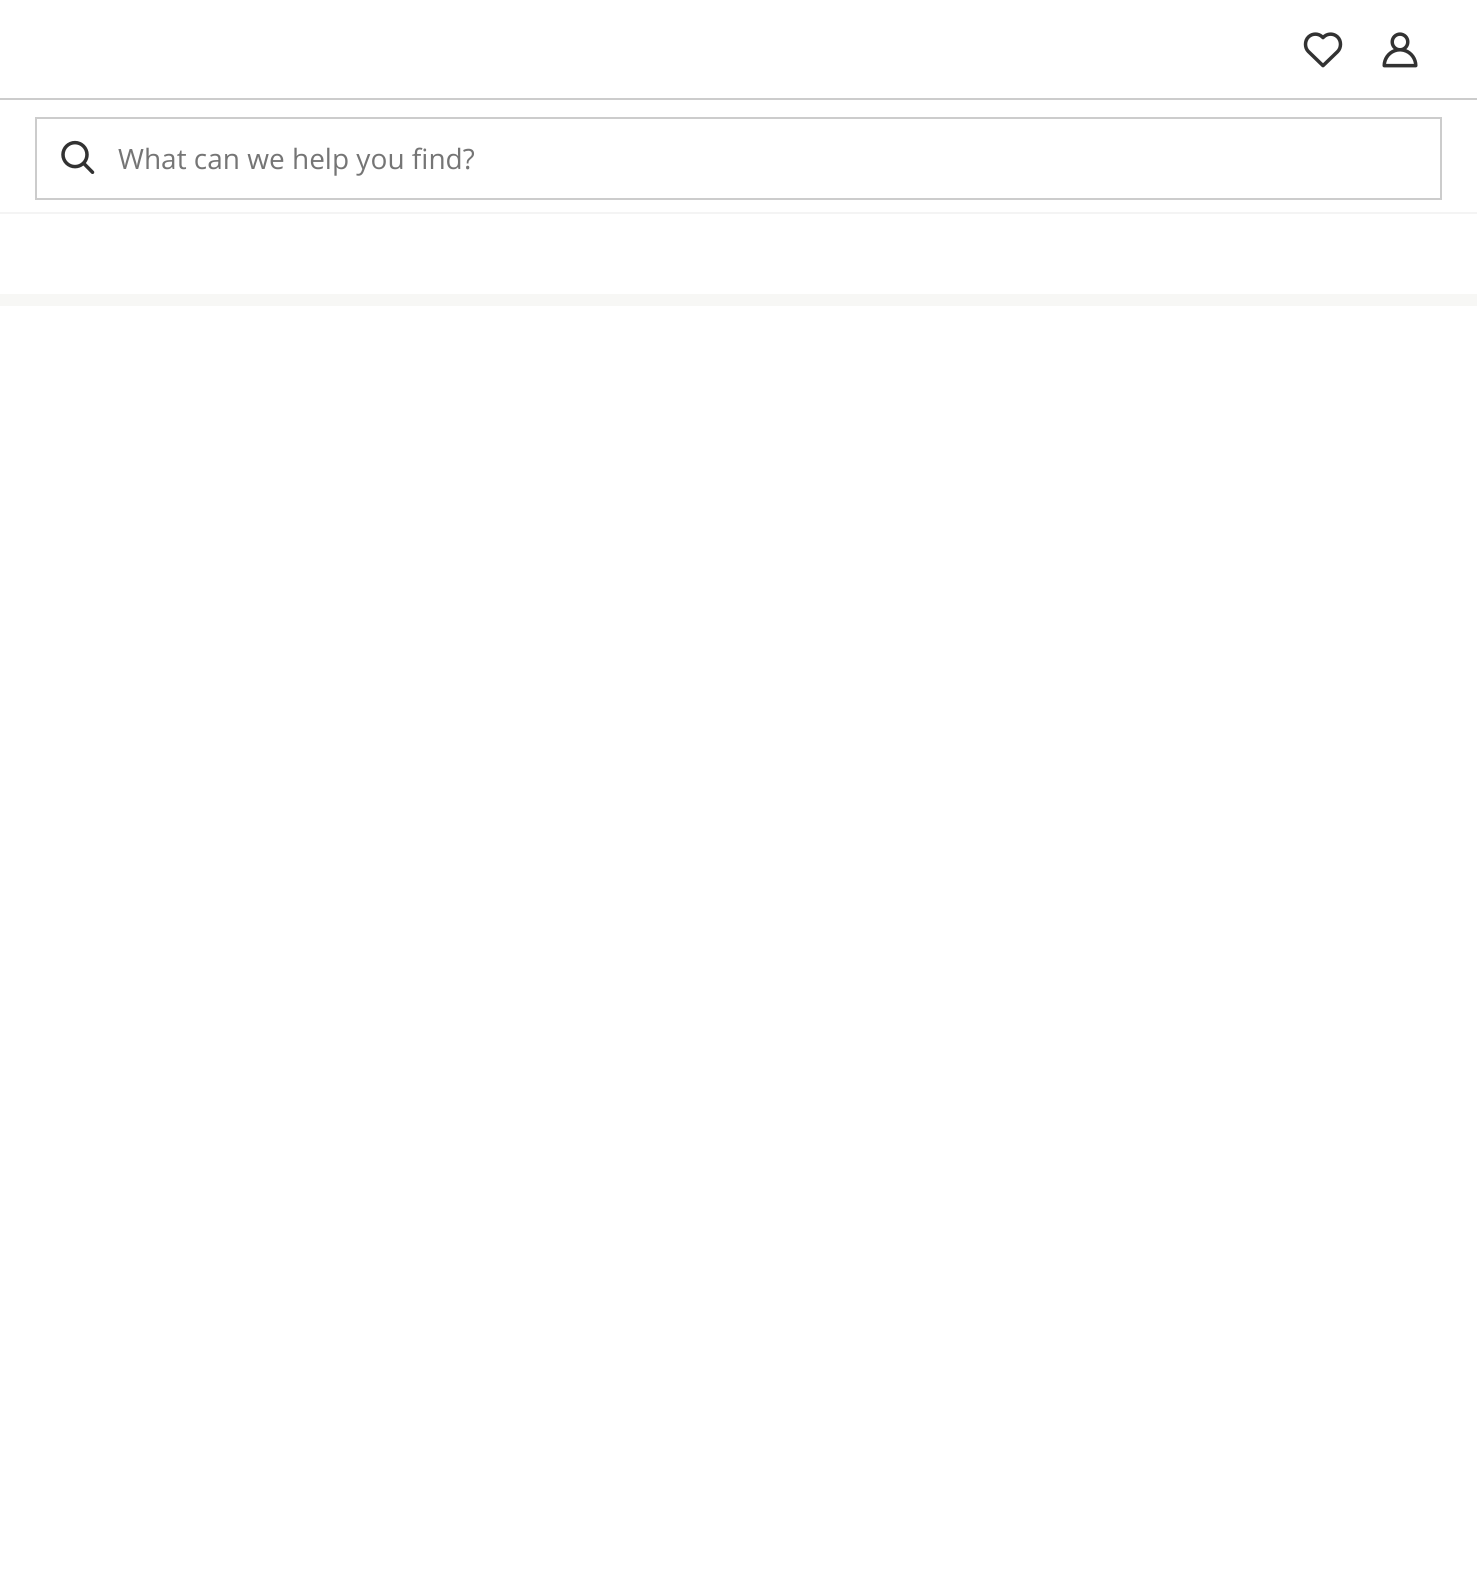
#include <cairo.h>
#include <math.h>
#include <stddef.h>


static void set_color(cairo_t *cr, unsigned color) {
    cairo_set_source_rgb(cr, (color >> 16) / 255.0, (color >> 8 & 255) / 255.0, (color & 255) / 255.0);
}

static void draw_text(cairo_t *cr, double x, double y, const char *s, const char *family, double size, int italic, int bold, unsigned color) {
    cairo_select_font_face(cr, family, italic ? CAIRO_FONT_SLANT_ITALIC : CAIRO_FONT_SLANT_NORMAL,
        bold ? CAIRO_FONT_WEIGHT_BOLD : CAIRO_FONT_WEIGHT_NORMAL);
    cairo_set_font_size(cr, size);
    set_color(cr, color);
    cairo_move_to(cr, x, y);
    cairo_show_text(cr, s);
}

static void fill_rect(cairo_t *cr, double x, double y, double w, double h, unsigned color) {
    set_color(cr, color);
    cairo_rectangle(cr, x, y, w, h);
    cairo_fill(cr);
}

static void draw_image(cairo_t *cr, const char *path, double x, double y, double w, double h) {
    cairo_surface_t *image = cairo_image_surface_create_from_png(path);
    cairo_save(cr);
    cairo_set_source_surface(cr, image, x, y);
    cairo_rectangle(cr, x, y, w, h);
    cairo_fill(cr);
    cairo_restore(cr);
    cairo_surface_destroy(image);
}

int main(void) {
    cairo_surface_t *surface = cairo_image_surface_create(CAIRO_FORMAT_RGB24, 1477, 1592);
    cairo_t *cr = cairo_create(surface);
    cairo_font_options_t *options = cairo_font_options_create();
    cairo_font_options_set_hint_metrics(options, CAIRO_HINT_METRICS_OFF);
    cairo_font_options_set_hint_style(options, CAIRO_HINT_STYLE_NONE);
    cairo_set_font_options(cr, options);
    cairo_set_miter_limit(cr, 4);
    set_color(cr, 0xFFFFFF);
    cairo_paint(cr);
    fill_rect(cr, 0, 98, 1477, 2, 0xCCCCCC);
    draw_image(cr, "assets/img1.png", 1303, 32, 40, 36);
    draw_image(cr, "assets/img2.png", 1382, 32, 36, 36);
    cairo_rectangle(cr, 36, 118, 1405, 81);
    cairo_stroke(cr);
    draw_image(cr, "assets/img3.png", 61, 140, 34, 34);
    draw_text(cr, 118, 169, "What can we help you find?", "Open Sans", 28, 0, 0, 0x757575);
    fill_rect(cr, 0, 212, 1477, 2, 0xF4F4F4);
    fill_rect(cr, 0, 294, 1477, 12, 0xF7F7F5);
    cairo_surface_write_to_png(surface, "output.png");
    cairo_font_options_destroy(options);
    cairo_destroy(cr);
    cairo_surface_destroy(surface);
    return 0;
}
